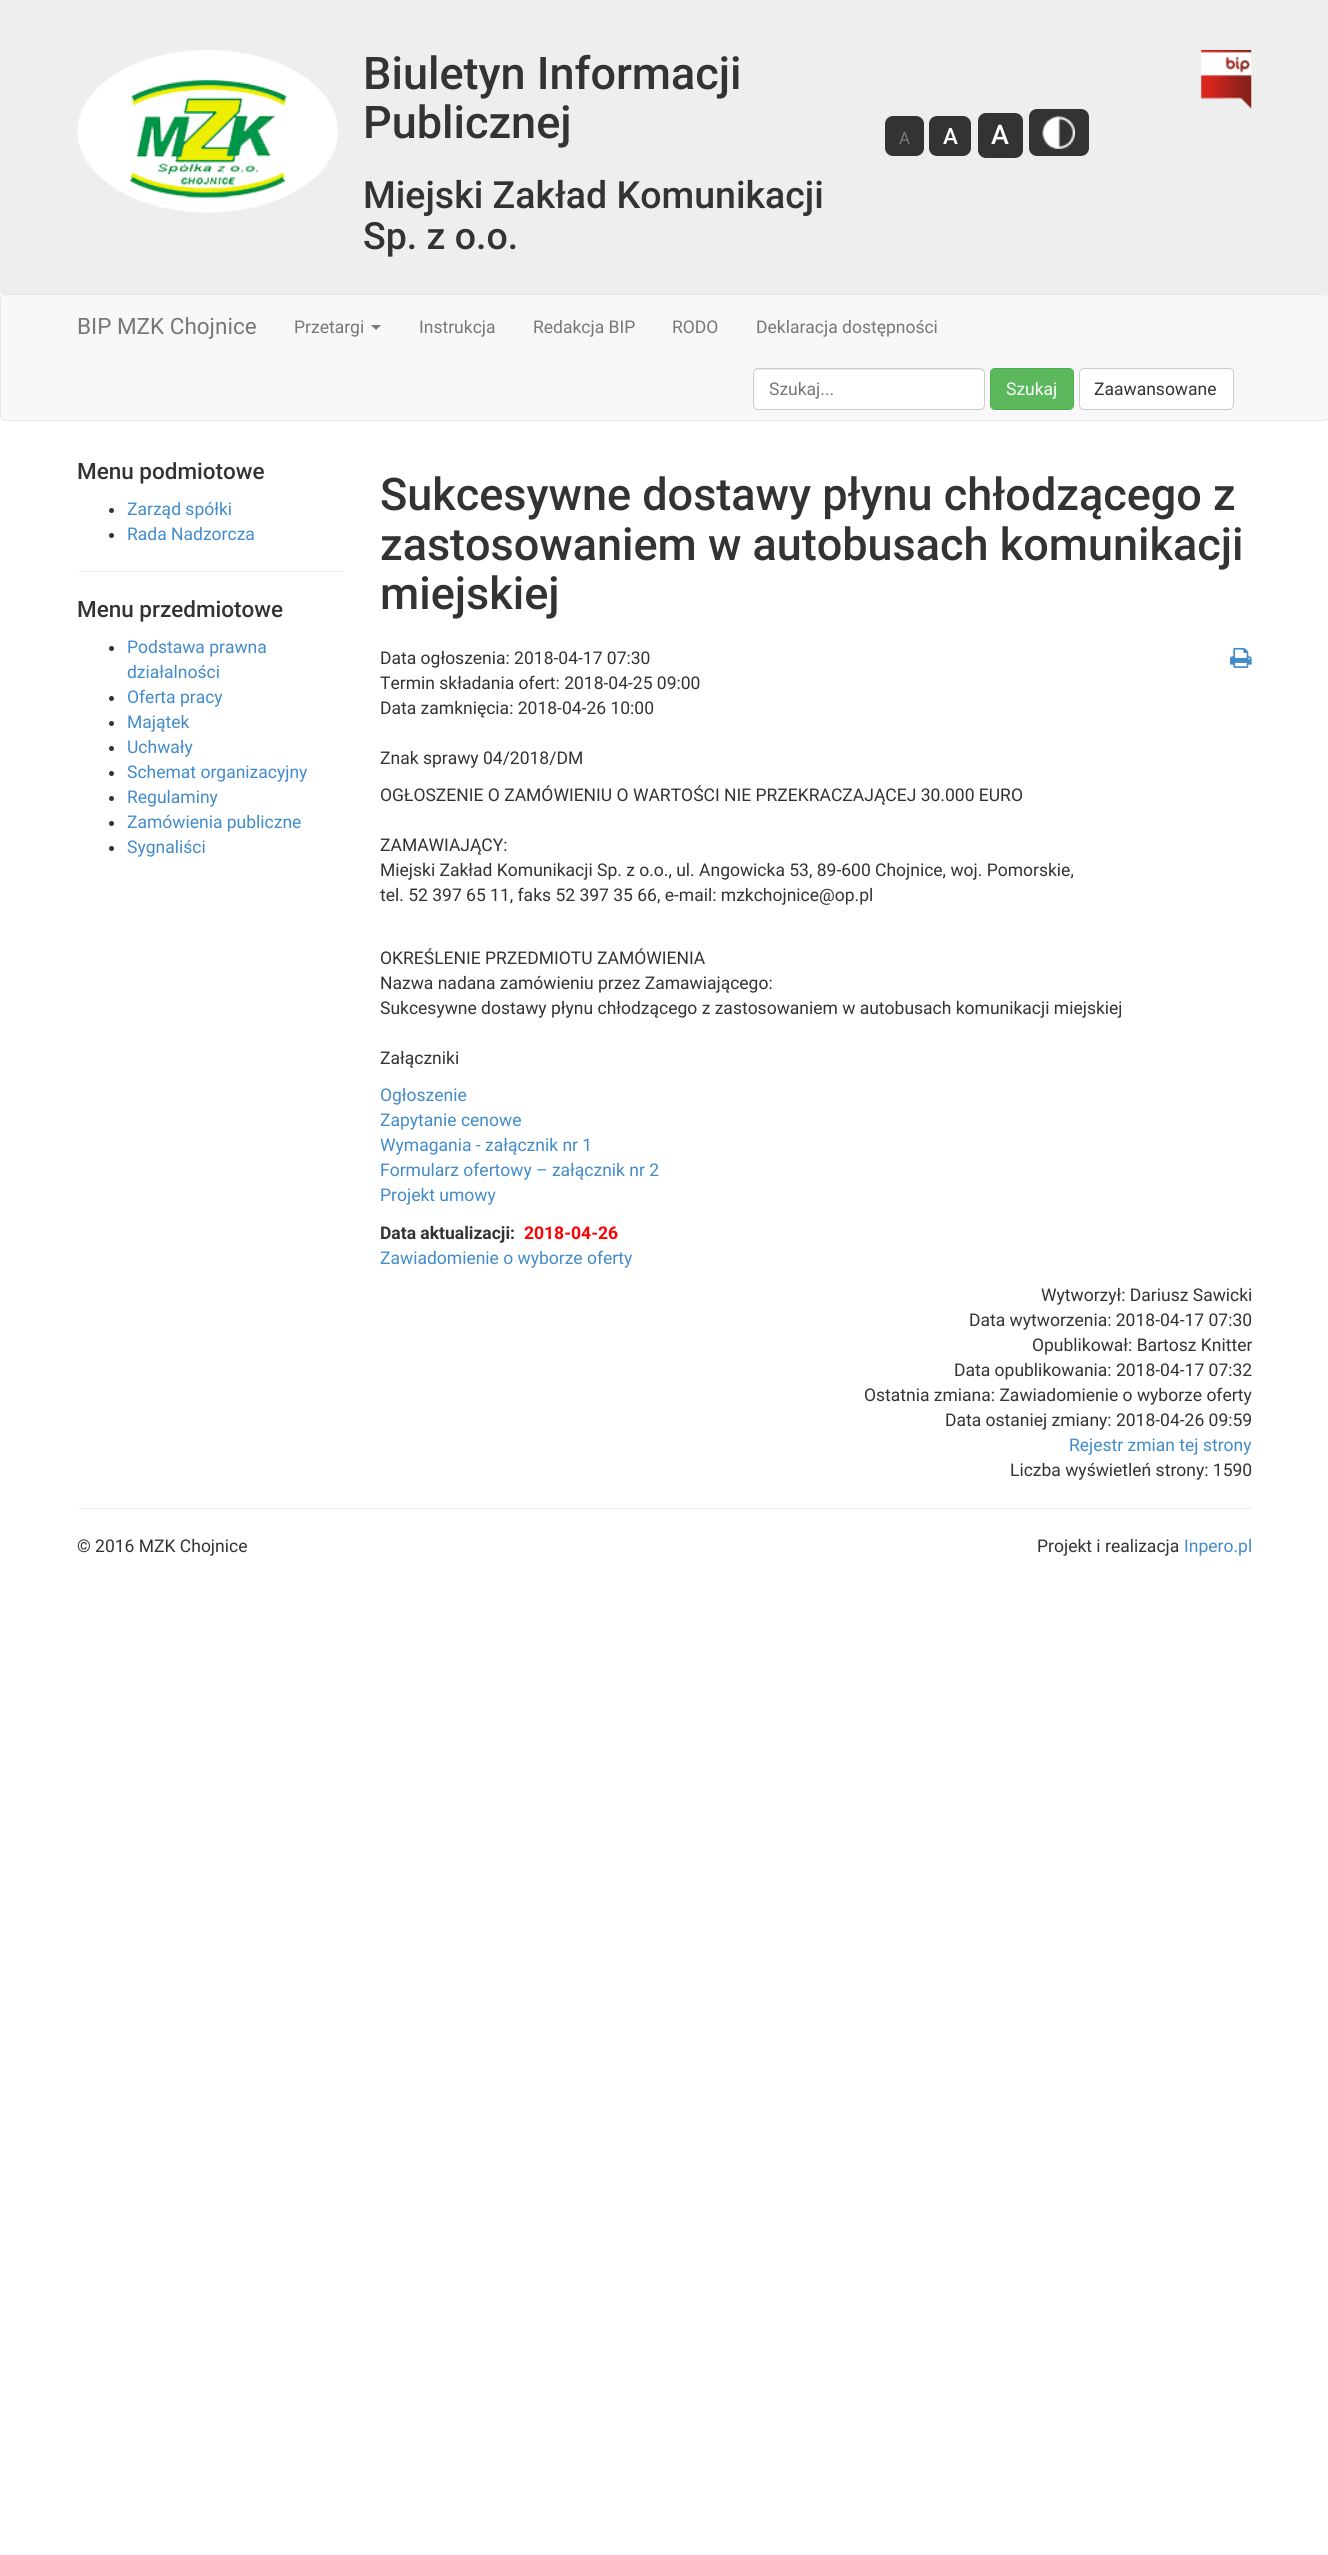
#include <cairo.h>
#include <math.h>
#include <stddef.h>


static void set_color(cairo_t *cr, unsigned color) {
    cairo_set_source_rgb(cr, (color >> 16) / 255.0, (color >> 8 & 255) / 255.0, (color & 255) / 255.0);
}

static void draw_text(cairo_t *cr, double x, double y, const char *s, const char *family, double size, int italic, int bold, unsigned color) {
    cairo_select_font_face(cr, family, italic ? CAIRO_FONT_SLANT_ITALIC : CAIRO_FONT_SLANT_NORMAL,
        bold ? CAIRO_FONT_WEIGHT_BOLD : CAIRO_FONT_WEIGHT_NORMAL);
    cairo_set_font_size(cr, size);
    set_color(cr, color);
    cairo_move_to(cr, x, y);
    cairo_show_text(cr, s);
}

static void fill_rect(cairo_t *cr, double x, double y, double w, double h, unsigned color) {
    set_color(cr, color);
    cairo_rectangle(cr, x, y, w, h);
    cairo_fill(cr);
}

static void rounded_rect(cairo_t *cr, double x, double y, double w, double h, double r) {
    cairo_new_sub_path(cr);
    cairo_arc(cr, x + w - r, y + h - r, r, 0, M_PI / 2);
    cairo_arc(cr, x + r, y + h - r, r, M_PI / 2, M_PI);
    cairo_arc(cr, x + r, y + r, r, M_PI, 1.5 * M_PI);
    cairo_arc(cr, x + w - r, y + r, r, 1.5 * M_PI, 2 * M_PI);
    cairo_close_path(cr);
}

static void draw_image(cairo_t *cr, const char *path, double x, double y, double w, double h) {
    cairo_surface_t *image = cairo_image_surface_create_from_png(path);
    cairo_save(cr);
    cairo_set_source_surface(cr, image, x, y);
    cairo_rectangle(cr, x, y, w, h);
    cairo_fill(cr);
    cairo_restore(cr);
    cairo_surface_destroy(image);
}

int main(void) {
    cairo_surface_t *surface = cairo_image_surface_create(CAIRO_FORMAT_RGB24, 1328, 2555);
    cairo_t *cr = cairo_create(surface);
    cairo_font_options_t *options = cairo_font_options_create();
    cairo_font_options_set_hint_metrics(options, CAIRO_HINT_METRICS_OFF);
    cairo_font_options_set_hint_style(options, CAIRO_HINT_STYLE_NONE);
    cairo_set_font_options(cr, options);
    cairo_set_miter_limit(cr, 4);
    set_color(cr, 0xFFFFFF);
    cairo_paint(cr);
    fill_rect(cr, 0, 0, 1328, 294, 0xEEEEEE);
    draw_image(cr, "assets/img1.png", 77, 50, 261, 163);
    draw_text(cr, 363, 89, "Biuletyn Informacji", "Roboto Medium", 45, 0, 0, 0x333333);
    draw_text(cr, 363, 138, "Publicznej", "Roboto Medium", 45, 0, 0, 0x333333);
    draw_text(cr, 363, 208, "Miejski Zakład Komunikacji", "Roboto Medium", 37.5, 0, 0, 0x333333);
    draw_text(cr, 363, 249, "Sp. z o.o.", "Roboto Medium", 37.5, 0, 0, 0x333333);
    rounded_rect(cr, 885, 116, 39, 40, 8);
    cairo_fill(cr);
    draw_text(cr, 899, 144, "A", "Roboto", 17, 0, 0, 0x777777);
    set_color(cr, 0x333333);
    rounded_rect(cr, 929, 116, 42, 40, 8);
    cairo_fill(cr);
    draw_text(cr, 943, 144, "A", "Roboto Medium", 22.5, 0, 0, 0xFFFFFF);
    set_color(cr, 0x333333);
    rounded_rect(cr, 978, 113, 45, 45, 8);
    cairo_fill(cr);
    draw_text(cr, 991, 144, "A", "Roboto Medium", 27, 0, 0, 0xFFFFFF);
    set_color(cr, 0x333333);
    rounded_rect(cr, 1029, 109, 60, 47, 8);
    cairo_fill(cr);
    draw_image(cr, "assets/img2.png", 1042, 116, 33, 33);
    draw_image(cr, "assets/img3.png", 1201, 50, 51, 59);
    set_color(cr, 0xF8F8F8);
    rounded_rect(cr, 0.5, 294.5, 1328, 126, 4.5);
    cairo_fill_preserve(cr);
    set_color(cr, 0xE7E7E7);
    cairo_set_line_width(cr, 1);
    cairo_stroke(cr);
    draw_text(cr, 77, 334, "BIP MZK Chojnice", "Roboto", 22.5, 0, 0, 0x777777);
    draw_text(cr, 294, 333, "Przetargi", "Roboto", 17.5, 0, 0, 0x777777);
    cairo_new_path(cr);
    cairo_move_to(cr, 371, 325);
    cairo_line_to(cr, 381, 325);
    cairo_line_to(cr, 376, 330);
    cairo_close_path(cr);
    cairo_fill(cr);
    draw_text(cr, 419, 333, "Instrukcja", "Roboto", 17.5, 0, 0, 0x777777);
    draw_text(cr, 533, 333, "Redakcja BIP", "Roboto", 17.5, 0, 0, 0x777777);
    draw_text(cr, 672, 333, "RODO", "Roboto", 17.5, 0, 0, 0x777777);
    draw_text(cr, 756, 333, "Deklaracja dostępności", "Roboto", 17.5, 0, 0, 0x777777);
    set_color(cr, 0xFFFFFF);
    rounded_rect(cr, 753, 368, 232, 42, 5);
    cairo_fill(cr);
    set_color(cr, 0xECECEC);
    cairo_new_path(cr);
    cairo_move_to(cr, 758, 370);
    cairo_line_to(cr, 980, 370);
    cairo_curve_to(cr, 982, 370, 984, 372, 984, 374);
    cairo_curve_to(cr, 984, 371, 983, 369, 980, 369);
    cairo_line_to(cr, 758, 369);
    cairo_curve_to(cr, 755, 369, 754, 371, 754, 374);
    cairo_curve_to(cr, 754, 372, 755, 370, 758, 370);
    cairo_close_path(cr);
    cairo_fill(cr);
    rounded_rect(cr, 753.5, 368.5, 231, 41, 4.5);
    set_color(cr, 0xCCCCCC);
    cairo_stroke(cr);
    draw_text(cr, 769, 395, "Szukaj...", "Roboto", 17.5, 0, 0, 0x777777);
    set_color(cr, 0x5CB85C);
    rounded_rect(cr, 990.5, 368.5, 83, 41, 4.5);
    cairo_fill_preserve(cr);
    set_color(cr, 0x4CAE4C);
    cairo_stroke(cr);
    draw_text(cr, 1006, 395, "Szukaj", "Roboto", 17.5, 0, 0, 0xFFFFFF);
    rounded_rect(cr, 1079.5, 368.5, 154, 41, 4.5);
    cairo_fill_preserve(cr);
    set_color(cr, 0xCCCCCC);
    cairo_stroke(cr);
    draw_text(cr, 1094, 395, "Zaawansowane", "Roboto", 17.5, 0, 0, 0x333333);
    draw_text(cr, 77, 479, "Menu podmiotowe", "Roboto Medium", 22.5, 0, 0, 0x333333);
    cairo_new_path(cr);
    cairo_arc(cr, 111.5, 510.5, 2.5, 0, 2 * M_PI);
    cairo_fill(cr);
    draw_text(cr, 127, 515, "Zarząd spółki", "Roboto", 17.5, 0, 0, 0x428BCA);
    set_color(cr, 0x333333);
    cairo_new_path(cr);
    cairo_arc(cr, 111.5, 535.5, 2.5, 0, 2 * M_PI);
    cairo_fill(cr);
    draw_text(cr, 127, 540, "Rada Nadzorcza", "Roboto", 17.5, 0, 0, 0x428BCA);
    fill_rect(cr, 78, 571, 265, 1, 0xEEEEEE);
    draw_text(cr, 77, 617, "Menu przedmiotowe", "Roboto Medium", 22.5, 0, 0, 0x333333);
    cairo_new_path(cr);
    cairo_arc(cr, 111.5, 648.5, 2.5, 0, 2 * M_PI);
    cairo_fill(cr);
    draw_text(cr, 127, 653, "Podstawa prawna", "Roboto", 17.5, 0, 0, 0x428BCA);
    draw_text(cr, 127, 678, "działalności", "Roboto", 17.5, 0, 0, 0x428BCA);
    set_color(cr, 0x333333);
    cairo_new_path(cr);
    cairo_arc(cr, 111.5, 698.5, 2.5, 0, 2 * M_PI);
    cairo_fill(cr);
    draw_text(cr, 127, 703, "Oferta pracy", "Roboto", 17.5, 0, 0, 0x428BCA);
    set_color(cr, 0x333333);
    cairo_new_path(cr);
    cairo_arc(cr, 111.5, 723.5, 2.5, 0, 2 * M_PI);
    cairo_fill(cr);
    draw_text(cr, 127, 728, "Majątek", "Roboto", 17.5, 0, 0, 0x428BCA);
    set_color(cr, 0x333333);
    cairo_new_path(cr);
    cairo_arc(cr, 111.5, 748.5, 2.5, 0, 2 * M_PI);
    cairo_fill(cr);
    draw_text(cr, 127, 753, "Uchwały", "Roboto", 17.5, 0, 0, 0x428BCA);
    set_color(cr, 0x333333);
    cairo_new_path(cr);
    cairo_arc(cr, 111.5, 773.5, 2.5, 0, 2 * M_PI);
    cairo_fill(cr);
    draw_text(cr, 127, 778, "Schemat organizacyjny", "Roboto", 17.5, 0, 0, 0x428BCA);
    set_color(cr, 0x333333);
    cairo_new_path(cr);
    cairo_arc(cr, 111.5, 798.5, 2.5, 0, 2 * M_PI);
    cairo_fill(cr);
    draw_text(cr, 127, 803, "Regulaminy", "Roboto", 17.5, 0, 0, 0x428BCA);
    set_color(cr, 0x333333);
    cairo_new_path(cr);
    cairo_arc(cr, 111.5, 823.5, 2.5, 0, 2 * M_PI);
    cairo_fill(cr);
    draw_text(cr, 127, 828, "Zamówienia publiczne", "Roboto", 17.5, 0, 0, 0x428BCA);
    set_color(cr, 0x333333);
    cairo_new_path(cr);
    cairo_arc(cr, 111.5, 848.5, 2.5, 0, 2 * M_PI);
    cairo_fill(cr);
    draw_text(cr, 127, 853, "Sygnaliści", "Roboto", 17.5, 0, 0, 0x428BCA);
    draw_text(cr, 380, 510, "Sukcesywne dostawy płynu chłodzącego z", "Roboto Medium", 45, 0, 0, 0x333333);
    draw_text(cr, 380, 560, "zastosowaniem w autobusach komunikacji", "Roboto Medium", 45, 0, 0, 0x333333);
    draw_text(cr, 380, 609, "miejskiej", "Roboto Medium", 45, 0, 0, 0x333333);
    draw_text(cr, 380, 664, "Data ogłoszenia: 2018-04-17 07:30", "Roboto", 17.5, 0, 0, 0x333333);
    draw_text(cr, 380, 689, "Termin składania ofert: 2018-04-25 09:00", "Roboto", 17.5, 0, 0, 0x333333);
    draw_text(cr, 380, 714, "Data zamknięcia: 2018-04-26 10:00", "Roboto", 17.5, 0, 0, 0x333333);
    draw_image(cr, "assets/img4.png", 1230, 647, 22, 21);
    draw_text(cr, 380, 764, "Znak sprawy 04/2018/DM", "Roboto", 17.5, 0, 0, 0x333333);
    draw_text(cr, 380, 801, "OGŁOSZENIE O ZAMÓWIENIU O WARTOŚCI NIE PRZEKRACZAJĄCEJ 30.000 EURO", "Roboto", 17.5, 0, 0, 0x333333);
    draw_text(cr, 380, 851, "ZAMAWIAJĄCY:", "Roboto", 17.5, 0, 0, 0x333333);
    draw_text(cr, 380, 876, "Miejski Zakład Komunikacji Sp. z o.o., ul. Angowicka 53, 89-600 Chojnice, woj. Pomorskie,", "Roboto", 17.5, 0, 0, 0x333333);
    draw_text(cr, 380, 901, "tel. 52 397 65 11, faks 52 397 35 66, e-mail: mzkchojnice@op.pl", "Roboto", 17.5, 0, 0, 0x333333);
    draw_text(cr, 380, 964, "OKREŚLENIE PRZEDMIOTU ZAMÓWIENIA", "Roboto", 17.5, 0, 0, 0x333333);
    draw_text(cr, 380, 989, "Nazwa nadana zamówieniu przez Zamawiającego:", "Roboto", 17.5, 0, 0, 0x333333);
    draw_text(cr, 380, 1014, "Sukcesywne dostawy płynu chłodzącego z zastosowaniem w autobusach komunikacji miejskiej", "Roboto", 17.5, 0, 0, 0x333333);
    draw_text(cr, 380, 1064, "Załączniki", "Roboto", 17.5, 0, 0, 0x333333);
    draw_text(cr, 380, 1101, "Ogłoszenie", "Roboto", 17.5, 0, 0, 0x428BCA);
    draw_text(cr, 380, 1126, "Zapytanie cenowe", "Roboto", 17.5, 0, 0, 0x428BCA);
    draw_text(cr, 380, 1151, "Wymagania - załącznik nr 1", "Roboto", 17.5, 0, 0, 0x428BCA);
    draw_text(cr, 380, 1176, "Formularz ofertowy – załącznik nr 2", "Roboto", 17.5, 0, 0, 0x428BCA);
    draw_text(cr, 380, 1201, "Projekt umowy", "Roboto", 17.5, 0, 0, 0x428BCA);
    draw_text(cr, 380, 1239, "Data aktualizacji:", "Roboto", 17.5, 0, 1, 0x333333);
    draw_text(cr, 524, 1239, "2018-04-26", "Roboto", 17.5, 0, 1, 0xFF0000);
    draw_text(cr, 380, 1264, "Zawiadomienie o wyborze oferty", "Roboto", 17.5, 0, 0, 0x428BCA);
    draw_text(cr, 1041, 1301, "Wytworzył: Dariusz Sawicki", "Roboto", 17.5, 0, 0, 0x333333);
    draw_text(cr, 969, 1326, "Data wytworzenia: 2018-04-17 07:30", "Roboto", 17.5, 0, 0, 0x333333);
    draw_text(cr, 1032, 1351, "Opublikował: Bartosz Knitter", "Roboto", 17.5, 0, 0, 0x333333);
    draw_text(cr, 954, 1376, "Data opublikowania: 2018-04-17 07:32", "Roboto", 17.5, 0, 0, 0x333333);
    draw_text(cr, 864, 1401, "Ostatnia zmiana: Zawiadomienie o wyborze oferty", "Roboto", 17.5, 0, 0, 0x333333);
    draw_text(cr, 945, 1426, "Data ostaniej zmiany: 2018-04-26 09:59", "Roboto", 17.5, 0, 0, 0x333333);
    draw_text(cr, 1069, 1451, "Rejestr zmian tej strony", "Roboto", 17.5, 0, 0, 0x428BCA);
    draw_text(cr, 1010, 1476, "Liczba wyświetleń strony: 1590", "Roboto", 17.5, 0, 0, 0x333333);
    fill_rect(cr, 78, 1508, 1175, 1, 0xEEEEEE);
    draw_text(cr, 77, 1552, "© 2016 MZK Chojnice", "Roboto", 17.5, 0, 0, 0x333333);
    draw_text(cr, 1037, 1552, "Projekt i realizacja", "Roboto", 17.5, 0, 0, 0x333333);
    draw_text(cr, 1184, 1552, "Inpero.pl", "Roboto", 17.5, 0, 0, 0x428BCA);
    cairo_surface_write_to_png(surface, "output.png");
    cairo_font_options_destroy(options);
    cairo_destroy(cr);
    cairo_surface_destroy(surface);
    return 0;
}
